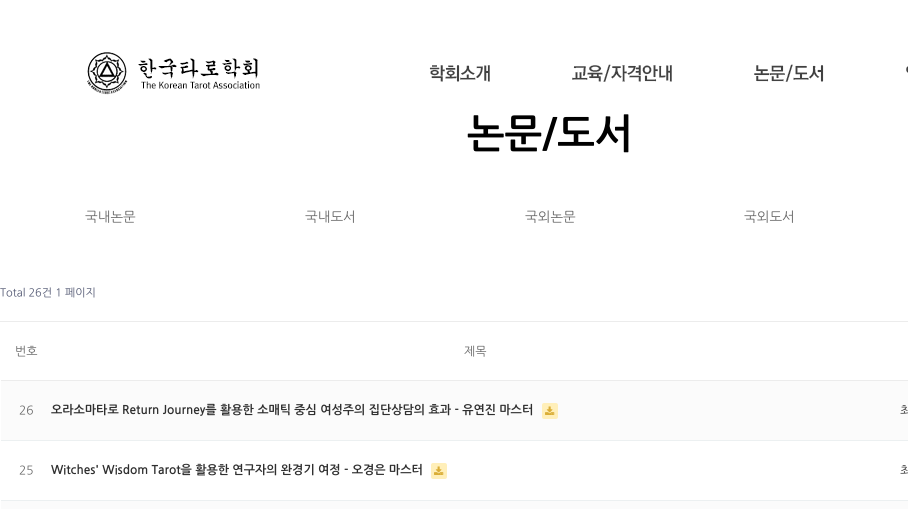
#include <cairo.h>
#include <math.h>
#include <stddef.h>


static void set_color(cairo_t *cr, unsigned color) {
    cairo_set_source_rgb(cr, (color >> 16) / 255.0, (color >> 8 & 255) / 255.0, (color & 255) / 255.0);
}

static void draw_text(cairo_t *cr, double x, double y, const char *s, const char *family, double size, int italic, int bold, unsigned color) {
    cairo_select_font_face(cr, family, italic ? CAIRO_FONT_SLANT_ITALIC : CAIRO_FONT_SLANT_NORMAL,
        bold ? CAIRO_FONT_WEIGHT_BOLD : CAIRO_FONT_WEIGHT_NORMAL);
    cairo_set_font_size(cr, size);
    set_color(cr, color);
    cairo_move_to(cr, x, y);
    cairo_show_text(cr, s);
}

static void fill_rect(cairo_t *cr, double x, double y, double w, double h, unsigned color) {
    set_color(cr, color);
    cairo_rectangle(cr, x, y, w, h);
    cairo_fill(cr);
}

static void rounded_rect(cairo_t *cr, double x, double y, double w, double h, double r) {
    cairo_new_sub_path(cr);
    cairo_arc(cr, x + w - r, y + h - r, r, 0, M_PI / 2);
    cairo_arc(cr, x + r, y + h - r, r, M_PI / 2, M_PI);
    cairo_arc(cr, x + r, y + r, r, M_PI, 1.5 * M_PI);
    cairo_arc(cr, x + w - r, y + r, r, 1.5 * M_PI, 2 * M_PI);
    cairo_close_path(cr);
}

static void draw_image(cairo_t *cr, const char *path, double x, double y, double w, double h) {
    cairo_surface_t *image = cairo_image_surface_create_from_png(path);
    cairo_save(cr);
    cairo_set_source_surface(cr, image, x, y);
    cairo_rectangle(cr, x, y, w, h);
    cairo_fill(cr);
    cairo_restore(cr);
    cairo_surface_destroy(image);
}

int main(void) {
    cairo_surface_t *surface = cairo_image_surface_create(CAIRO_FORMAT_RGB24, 908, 509);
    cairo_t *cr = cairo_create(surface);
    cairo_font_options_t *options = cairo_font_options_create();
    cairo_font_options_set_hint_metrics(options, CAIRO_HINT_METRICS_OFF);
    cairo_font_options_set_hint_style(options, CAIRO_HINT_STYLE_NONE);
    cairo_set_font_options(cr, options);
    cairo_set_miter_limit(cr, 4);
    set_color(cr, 0xFFFFFF);
    cairo_paint(cr);
    draw_image(cr, "assets/img1.png", 87, 52, 173, 43);
    draw_image(cr, "assets/img2.png", 429, 65, 61, 17);
    draw_image(cr, "assets/img3.png", 572, 64, 100, 18);
    draw_image(cr, "assets/img4.png", 754, 64, 70, 18);
    draw_image(cr, "assets/img5.png", 906, 66, 2, 7);
    draw_text(cr, 467, 148, "논문/도서", "NanumGothic", 40, 0, 1, 0x000000);
    draw_text(cr, 85, 221, "국내논문", "NanumGothic", 13.5, 0, 0, 0x666666);
    draw_text(cr, 305, 221, "국내도서", "NanumGothic", 13.5, 0, 0, 0x666666);
    draw_text(cr, 525, 221, "국외논문", "NanumGothic", 13.5, 0, 0, 0x666666);
    draw_text(cr, 744, 221, "국외도서", "NanumGothic", 13.5, 0, 0, 0x666666);
    draw_text(cr, 0, 296, "Total 26건 1 페이지", "NanumGothic", 11, 0, 0, 0x4E546F);
    fill_rect(cr, 0, 321, 908, 1, 0xECECEC);
    draw_text(cr, 15, 355, "번호", "NanumGothic", 12, 0, 0, 0x666666);
    draw_text(cr, 464, 355, "제목", "NanumGothic", 12, 0, 0, 0x666666);
    fill_rect(cr, 1, 380, 907, 1, 0xECECEC);
    fill_rect(cr, 1, 381, 899, 59, 0xFBFBFB);
    draw_text(cr, 19, 414, "26", "NanumGothic", 12, 0, 0, 0x666666);
    draw_text(cr, 51, 414, "오라소마타로 Return Journey를 활용한 소매틱 중심 여성주의 집단상담의 효과 - 유연진 마스터", "NanumGothic", 12, 0, 1, 0x2F2F2F);
    set_color(cr, 0xFFEFB9);
    rounded_rect(cr, 542, 403, 16, 16, 2);
    cairo_fill(cr);
    draw_image(cr, "assets/img6.png", 545, 406, 10, 9);
    fill_rect(cr, 900, 381, 8, 60, 0xFBFBFB);
    draw_text(cr, 900, 414, "최", "NanumGothic", 12, 0, 0, 0x2F2F2F);
    draw_text(cr, 19, 474, "25", "NanumGothic", 12, 0, 0, 0x666666);
    draw_text(cr, 51, 474, "Witches' Wisdom Tarot을 활용한 연구자의 완경기 여정 - 오경은 마스터", "NanumGothic", 12, 0, 1, 0x2F2F2F);
    set_color(cr, 0xFFEFB9);
    rounded_rect(cr, 431, 463, 16, 16, 2);
    cairo_fill(cr);
    draw_image(cr, "assets/img6.png", 434, 466, 10, 9);
    fill_rect(cr, 1, 440, 907, 1, 0xECF0F1);
    draw_text(cr, 900, 474, "최", "NanumGothic", 12, 0, 0, 0x2F2F2F);
    fill_rect(cr, 1, 500, 907, 1, 0xECF0F1);
    fill_rect(cr, 1, 501, 907, 8, 0xFBFBFB);
    cairo_surface_write_to_png(surface, "output.png");
    cairo_font_options_destroy(options);
    cairo_destroy(cr);
    cairo_surface_destroy(surface);
    return 0;
}
